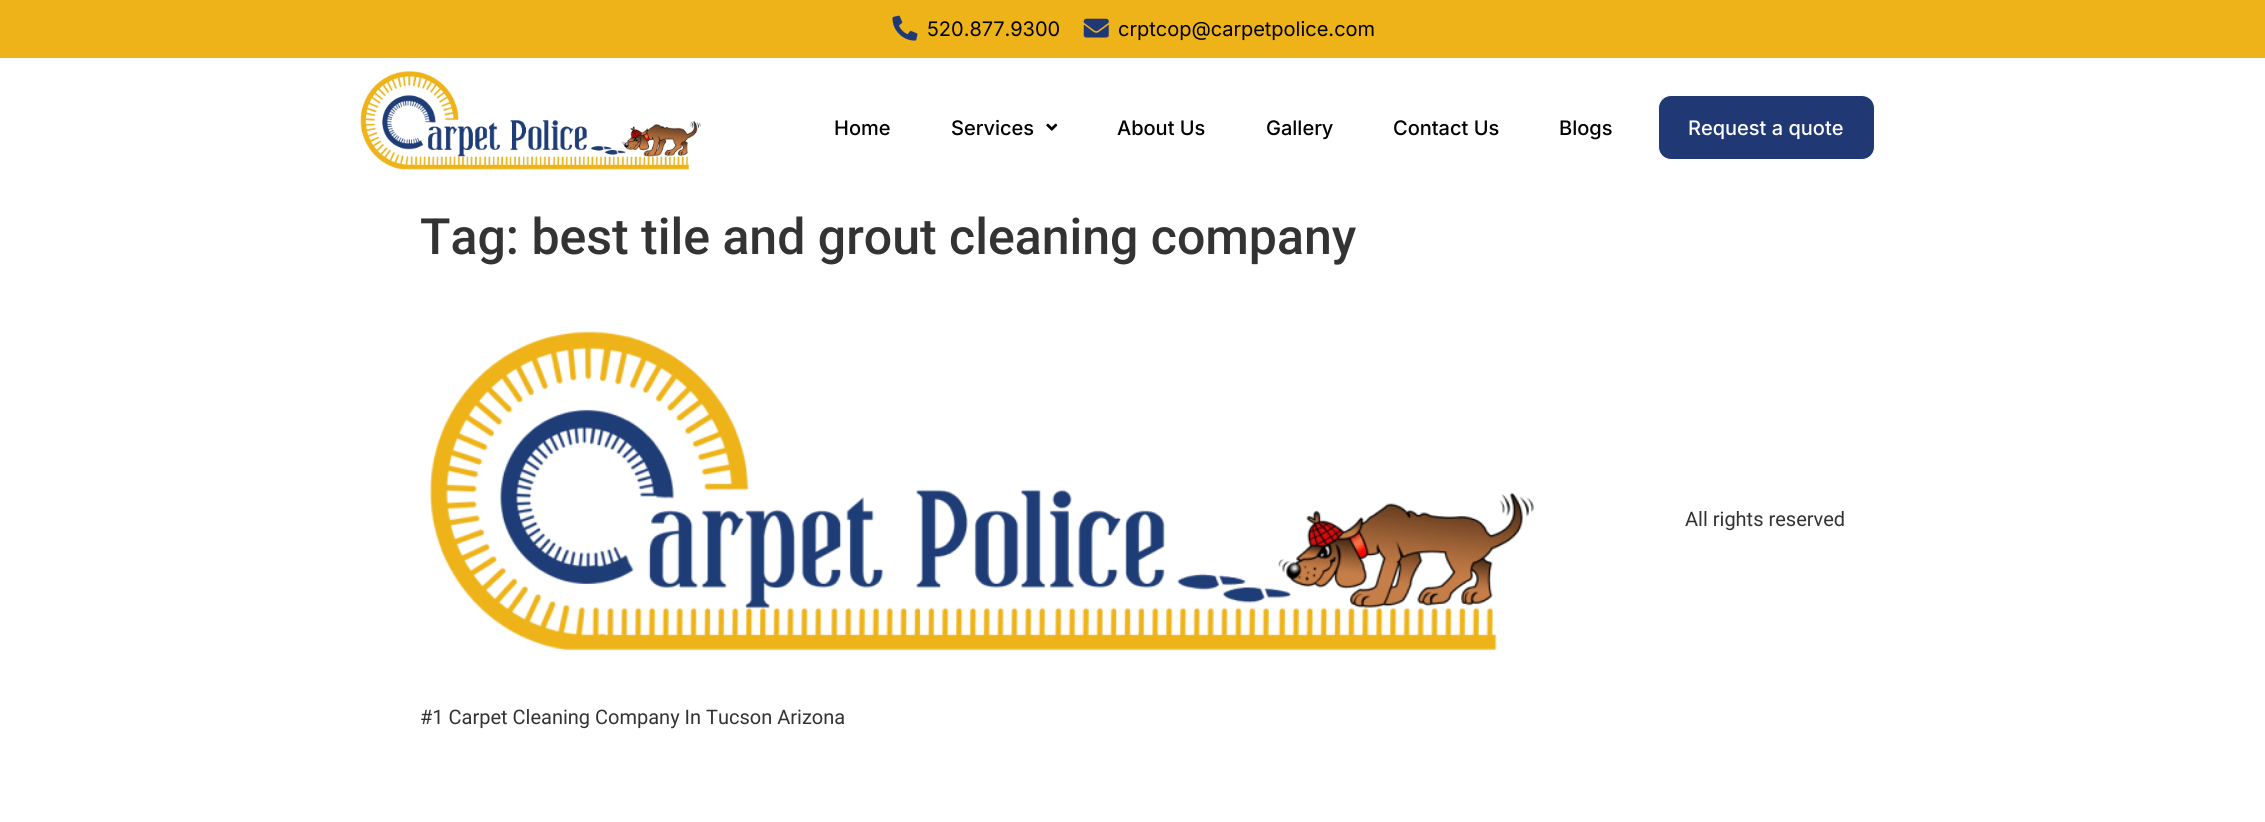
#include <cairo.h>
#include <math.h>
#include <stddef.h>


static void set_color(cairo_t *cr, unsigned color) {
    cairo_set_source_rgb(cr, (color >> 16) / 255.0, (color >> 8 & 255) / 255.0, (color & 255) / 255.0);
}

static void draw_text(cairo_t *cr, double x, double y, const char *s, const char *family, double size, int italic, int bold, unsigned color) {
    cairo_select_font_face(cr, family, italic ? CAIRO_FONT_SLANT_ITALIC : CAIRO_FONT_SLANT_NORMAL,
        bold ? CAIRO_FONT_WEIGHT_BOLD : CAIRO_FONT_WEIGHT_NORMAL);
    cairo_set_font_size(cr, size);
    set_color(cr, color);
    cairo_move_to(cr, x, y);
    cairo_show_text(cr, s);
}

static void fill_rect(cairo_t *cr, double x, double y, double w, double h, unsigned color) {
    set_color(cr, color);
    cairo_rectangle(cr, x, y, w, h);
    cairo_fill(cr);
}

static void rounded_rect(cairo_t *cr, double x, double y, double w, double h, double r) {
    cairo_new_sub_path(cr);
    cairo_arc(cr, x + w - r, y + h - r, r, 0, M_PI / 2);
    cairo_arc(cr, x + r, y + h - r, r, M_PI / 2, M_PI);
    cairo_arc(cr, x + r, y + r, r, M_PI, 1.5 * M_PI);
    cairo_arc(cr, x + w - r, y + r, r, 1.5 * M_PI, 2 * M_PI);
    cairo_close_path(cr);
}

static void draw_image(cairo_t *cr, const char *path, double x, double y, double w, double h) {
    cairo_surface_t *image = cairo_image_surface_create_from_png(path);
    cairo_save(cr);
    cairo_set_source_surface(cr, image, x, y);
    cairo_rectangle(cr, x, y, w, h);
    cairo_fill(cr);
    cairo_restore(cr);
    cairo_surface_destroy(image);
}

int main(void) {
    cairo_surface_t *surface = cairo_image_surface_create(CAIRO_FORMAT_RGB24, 2265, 822);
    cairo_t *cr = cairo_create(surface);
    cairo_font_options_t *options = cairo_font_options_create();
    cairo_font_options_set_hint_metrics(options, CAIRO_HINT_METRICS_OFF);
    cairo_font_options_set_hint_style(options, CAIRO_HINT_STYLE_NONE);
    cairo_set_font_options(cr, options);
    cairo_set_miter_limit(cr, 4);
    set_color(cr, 0xFFFFFF);
    cairo_paint(cr);
    fill_rect(cr, 0, 0, 2265, 58, 0xEEB319);
    draw_image(cr, "assets/img1.png", 892, 15, 26, 26);
    draw_text(cr, 927, 36, "520.877.9300", "Inter", 20, 0, 0, 0x000000);
    draw_image(cr, "assets/img2.png", 1083, 18, 26, 20);
    draw_text(cr, 1118, 36, "crptcop@carpetpolice.com", "Inter", 20, 0, 0, 0x000000);
    draw_image(cr, "assets/img3.png", 360, 70, 341, 100);
    draw_text(cr, 834, 135, "Home", "Inter Medium", 20, 0, 0, 0x000000);
    draw_text(cr, 951, 135, "Services", "Inter Medium", 20, 0, 0, 0x000000);
    draw_image(cr, "assets/img4.png", 1046, 123, 12, 8);
    draw_text(cr, 1117, 135, "About Us", "Inter Medium", 20, 0, 0, 0x000000);
    draw_text(cr, 1266, 135, "Gallery", "Inter Medium", 20, 0, 0, 0x000000);
    draw_text(cr, 1393, 135, "Contact Us", "Inter Medium", 20, 0, 0, 0x000000);
    draw_text(cr, 1559, 135, "Blogs", "Inter Medium", 20, 0, 0, 0x000000);
    set_color(cr, 0x203975);
    rounded_rect(cr, 1658.5, 95.5, 216, 64, 12.5);
    cairo_fill_preserve(cr);
    set_color(cr, 0xFFFFFF);
    cairo_set_line_width(cr, 1);
    cairo_stroke(cr);
    draw_text(cr, 1688, 135, "Request a quote", "Inter Medium", 20, 0, 0, 0xFFFFFF);
    draw_text(cr, 420, 254, "Tag: best tile and grout cleaning company", "Roboto Medium", 50, 0, 0, 0x333333);
    draw_text(cr, 1685, 526, "All rights reserved", "Roboto", 20, 0, 0, 0x333333);
    draw_image(cr, "assets/img5.png", 429, 331, 1105, 320);
    draw_text(cr, 420, 724, "#1 Carpet Cleaning Company In Tucson Arizona", "Roboto", 20, 0, 0, 0x333333);
    cairo_surface_write_to_png(surface, "output.png");
    cairo_font_options_destroy(options);
    cairo_destroy(cr);
    cairo_surface_destroy(surface);
    return 0;
}
